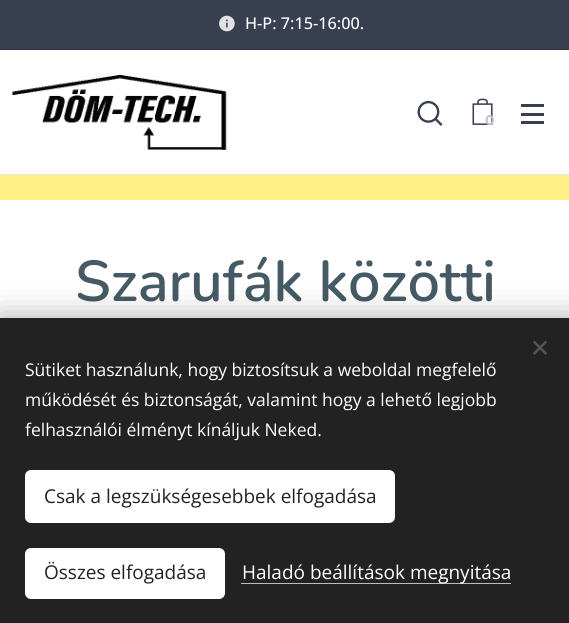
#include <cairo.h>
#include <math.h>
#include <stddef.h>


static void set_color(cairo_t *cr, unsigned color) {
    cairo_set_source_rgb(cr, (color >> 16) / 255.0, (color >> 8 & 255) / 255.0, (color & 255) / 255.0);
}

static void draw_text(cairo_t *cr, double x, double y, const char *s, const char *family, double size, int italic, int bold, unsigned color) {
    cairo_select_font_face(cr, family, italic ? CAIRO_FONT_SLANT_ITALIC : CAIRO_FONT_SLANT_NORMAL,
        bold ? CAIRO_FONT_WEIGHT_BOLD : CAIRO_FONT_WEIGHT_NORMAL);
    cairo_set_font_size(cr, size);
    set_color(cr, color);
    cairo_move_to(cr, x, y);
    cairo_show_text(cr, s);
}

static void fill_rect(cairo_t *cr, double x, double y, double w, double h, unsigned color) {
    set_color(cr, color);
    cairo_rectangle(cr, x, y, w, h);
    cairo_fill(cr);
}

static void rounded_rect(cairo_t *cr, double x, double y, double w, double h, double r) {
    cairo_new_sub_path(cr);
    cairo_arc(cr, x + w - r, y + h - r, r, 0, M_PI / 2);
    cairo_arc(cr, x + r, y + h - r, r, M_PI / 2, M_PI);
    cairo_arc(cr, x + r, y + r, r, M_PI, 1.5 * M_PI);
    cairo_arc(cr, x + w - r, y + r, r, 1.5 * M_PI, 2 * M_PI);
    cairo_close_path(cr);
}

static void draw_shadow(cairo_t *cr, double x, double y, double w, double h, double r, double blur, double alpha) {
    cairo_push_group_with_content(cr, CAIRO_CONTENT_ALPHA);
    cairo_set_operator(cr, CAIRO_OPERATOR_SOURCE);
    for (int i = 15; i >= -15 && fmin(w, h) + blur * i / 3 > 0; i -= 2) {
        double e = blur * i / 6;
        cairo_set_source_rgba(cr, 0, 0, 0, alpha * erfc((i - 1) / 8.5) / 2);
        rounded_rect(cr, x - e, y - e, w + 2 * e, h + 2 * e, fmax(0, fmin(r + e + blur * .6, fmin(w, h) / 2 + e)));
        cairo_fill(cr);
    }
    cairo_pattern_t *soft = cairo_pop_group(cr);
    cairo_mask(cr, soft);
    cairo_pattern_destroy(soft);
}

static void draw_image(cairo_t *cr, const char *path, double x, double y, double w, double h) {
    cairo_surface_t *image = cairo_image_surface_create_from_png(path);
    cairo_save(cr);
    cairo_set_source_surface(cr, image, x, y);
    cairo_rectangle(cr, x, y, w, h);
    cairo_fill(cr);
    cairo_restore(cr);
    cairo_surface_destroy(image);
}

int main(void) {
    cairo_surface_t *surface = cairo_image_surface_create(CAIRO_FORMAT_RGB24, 569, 623);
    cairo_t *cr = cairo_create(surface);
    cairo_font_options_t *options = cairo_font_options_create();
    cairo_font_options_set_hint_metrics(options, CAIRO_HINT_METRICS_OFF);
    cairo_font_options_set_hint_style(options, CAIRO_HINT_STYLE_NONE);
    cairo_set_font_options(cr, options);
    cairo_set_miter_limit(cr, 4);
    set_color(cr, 0xFFF186);
    cairo_paint(cr);
    fill_rect(cr, 0, 0, 569, 49, 0x373F51);
    draw_image(cr, "assets/img1.png", 219, 15, 16, 17);
    draw_text(cr, 245, 29, "H-P: 7:15-16:00.", "Open Sans Medium", 16.25, 0, 0, 0xFFFFFF);
    fill_rect(cr, 0, 49, 569, 1, 0x2F3645);
    fill_rect(cr, 0, 50, 569, 124, 0xFFFFFF);
    draw_image(cr, "assets/img2.png", 12, 75, 215, 75);
    draw_image(cr, "assets/img3.png", 417, 100, 26, 26);
    draw_image(cr, "assets/img4.png", 472, 98, 21, 27);
    draw_text(cr, 485, 125, "0", "Montserrat", 14, 0, 1, 0xC3C5CB);
    fill_rect(cr, 521, 113, 23, 3, 0x373F51);
    fill_rect(cr, 521, 104, 23, 3, 0x373F51);
    fill_rect(cr, 521, 121, 23, 3, 0x373F51);
    fill_rect(cr, 0, 174, 569, 1, 0xE8E8E8);
    fill_rect(cr, 0, 200, 569, 118, 0xFFFFFF);
    draw_text(cr, 75, 301, "Szarufák közötti", "Nunito SemiBold", 57.5, 0, 0, 0x455A64);
    set_color(cr, 0x000000);
    draw_shadow(cr, 0, 318, 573, 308, 0, 15.5, 0.33);
    fill_rect(cr, 0, 318, 569, 305, 0x222222);
    set_color(cr, 0x555555);
    cairo_new_path(cr);
    cairo_move_to(cr, 533, 353);
    cairo_line_to(cr, 545.5, 340.5);
    cairo_line_to(cr, 547, 342.5);
    cairo_line_to(cr, 534.5, 355);
    cairo_close_path(cr);
    cairo_fill(cr);
    cairo_new_path(cr);
    cairo_move_to(cr, 534.5, 340.5);
    cairo_line_to(cr, 547, 353);
    cairo_line_to(cr, 545.5, 355);
    cairo_line_to(cr, 533, 342.5);
    cairo_close_path(cr);
    cairo_fill(cr);
    draw_text(cr, 25, 376, "Sütiket használunk, hogy biztosítsuk a weboldal megfelelő", "Open Sans", 17.5, 0, 0, 0xFFFFFF);
    draw_text(cr, 25, 406, "működését és biztonságát, valamint hogy a lehető legjobb", "Open Sans", 17.5, 0, 0, 0xFFFFFF);
    draw_text(cr, 25, 436, "felhasználói élményt kínáljuk Neked.", "Open Sans", 17.5, 0, 0, 0xFFFFFF);
    rounded_rect(cr, 25, 470, 370, 53, 6);
    cairo_fill(cr);
    draw_text(cr, 44, 503, "Csak a legszükségesebbek elfogadása", "Open Sans", 19, 0, 0, 0x222222);
    set_color(cr, 0xFFFFFF);
    rounded_rect(cr, 25, 548, 200, 51, 6);
    cairo_fill(cr);
    draw_text(cr, 44, 579, "Összes elfogadása", "Open Sans", 19, 0, 0, 0x222222);
    fill_rect(cr, 241, 583, 270, 1, 0xBDBDBD);
    draw_text(cr, 242, 579, "Haladó beállítások megnyitása", "Open Sans", 19, 0, 0, 0xFFFFFF);
    cairo_surface_write_to_png(surface, "output.png");
    cairo_font_options_destroy(options);
    cairo_destroy(cr);
    cairo_surface_destroy(surface);
    return 0;
}
